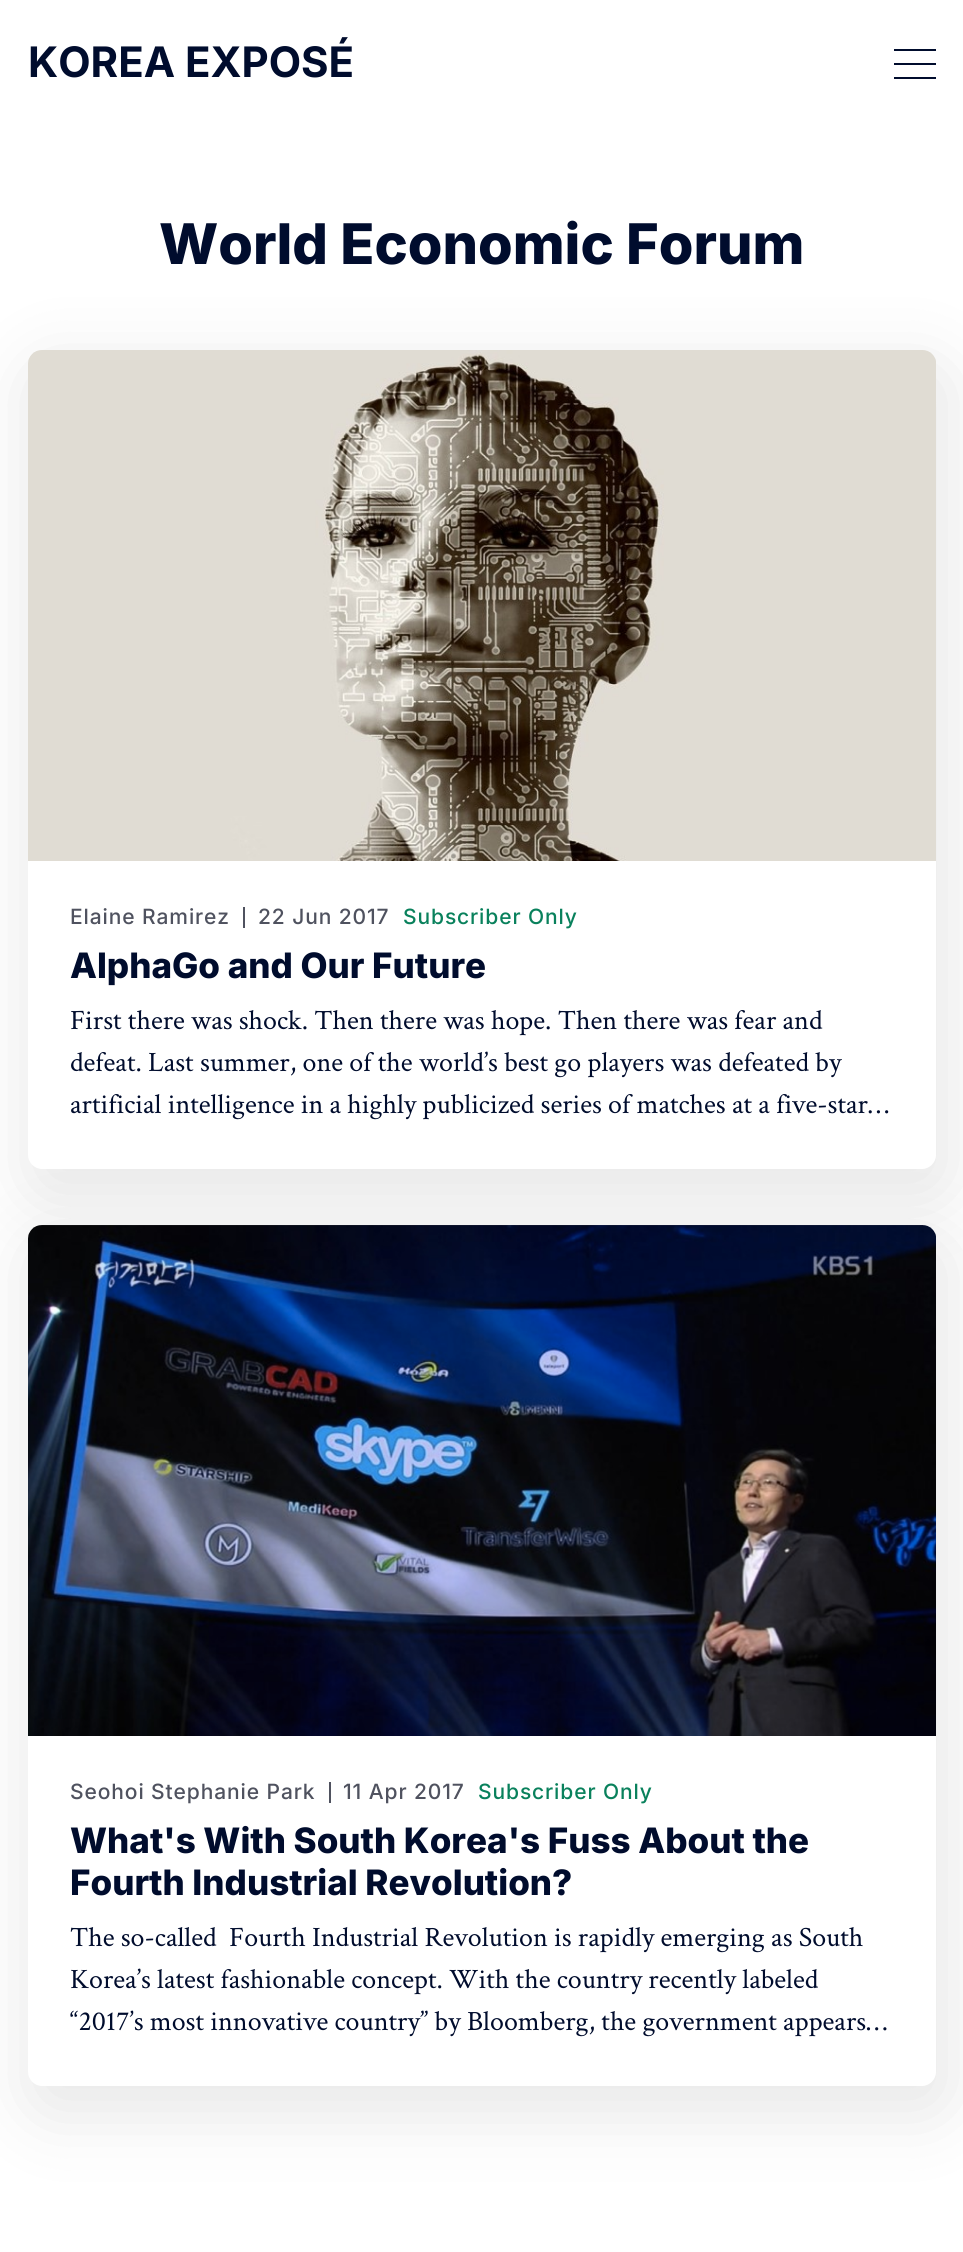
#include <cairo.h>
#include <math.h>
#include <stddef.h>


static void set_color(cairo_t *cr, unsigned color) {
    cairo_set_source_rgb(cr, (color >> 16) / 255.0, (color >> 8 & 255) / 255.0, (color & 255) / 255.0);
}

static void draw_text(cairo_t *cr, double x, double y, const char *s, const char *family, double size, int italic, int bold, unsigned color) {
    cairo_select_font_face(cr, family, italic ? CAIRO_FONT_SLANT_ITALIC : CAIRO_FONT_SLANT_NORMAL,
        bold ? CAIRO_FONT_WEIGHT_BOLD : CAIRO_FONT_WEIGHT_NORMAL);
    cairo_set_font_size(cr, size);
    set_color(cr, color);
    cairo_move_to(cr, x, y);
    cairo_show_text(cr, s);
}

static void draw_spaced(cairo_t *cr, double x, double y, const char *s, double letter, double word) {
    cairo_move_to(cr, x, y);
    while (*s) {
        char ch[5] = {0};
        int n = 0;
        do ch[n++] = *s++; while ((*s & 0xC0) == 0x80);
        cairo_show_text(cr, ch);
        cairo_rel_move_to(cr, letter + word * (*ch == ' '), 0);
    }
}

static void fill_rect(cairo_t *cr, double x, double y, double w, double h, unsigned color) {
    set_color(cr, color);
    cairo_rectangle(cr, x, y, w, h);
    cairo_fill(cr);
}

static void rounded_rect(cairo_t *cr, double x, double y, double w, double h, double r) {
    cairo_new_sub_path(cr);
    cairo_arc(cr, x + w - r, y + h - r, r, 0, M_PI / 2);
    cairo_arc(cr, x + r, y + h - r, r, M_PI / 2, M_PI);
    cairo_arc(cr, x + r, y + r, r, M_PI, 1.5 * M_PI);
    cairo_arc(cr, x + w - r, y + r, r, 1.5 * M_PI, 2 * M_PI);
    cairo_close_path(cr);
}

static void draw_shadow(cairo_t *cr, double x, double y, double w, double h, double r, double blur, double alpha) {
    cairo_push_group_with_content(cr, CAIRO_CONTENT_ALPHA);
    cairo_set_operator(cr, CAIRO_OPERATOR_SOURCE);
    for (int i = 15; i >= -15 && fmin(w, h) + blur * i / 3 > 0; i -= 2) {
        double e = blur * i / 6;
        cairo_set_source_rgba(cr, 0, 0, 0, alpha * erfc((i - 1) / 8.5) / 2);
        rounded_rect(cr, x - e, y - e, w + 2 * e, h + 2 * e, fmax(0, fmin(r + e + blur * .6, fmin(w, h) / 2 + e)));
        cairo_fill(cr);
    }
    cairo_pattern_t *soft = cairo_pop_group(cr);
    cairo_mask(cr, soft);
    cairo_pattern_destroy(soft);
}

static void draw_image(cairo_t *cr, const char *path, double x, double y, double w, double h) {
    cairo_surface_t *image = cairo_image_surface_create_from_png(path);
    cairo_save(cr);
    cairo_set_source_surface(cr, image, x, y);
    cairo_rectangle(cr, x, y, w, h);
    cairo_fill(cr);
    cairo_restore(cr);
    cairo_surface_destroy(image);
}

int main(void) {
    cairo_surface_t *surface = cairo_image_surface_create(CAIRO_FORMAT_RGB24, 963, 2252);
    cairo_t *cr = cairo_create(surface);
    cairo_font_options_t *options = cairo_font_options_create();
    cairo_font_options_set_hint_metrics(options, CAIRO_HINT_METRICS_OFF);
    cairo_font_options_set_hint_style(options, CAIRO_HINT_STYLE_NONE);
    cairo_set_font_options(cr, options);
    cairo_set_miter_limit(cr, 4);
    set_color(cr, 0xFFFFFF);
    cairo_paint(cr);
    draw_text(cr, 28, 77, "KOREA EXPOSÉ", "Inter", 42, 0, 1, 0x000C2D);
    fill_rect(cr, 894, 49, 42, 2, 0x000C2D);
    fill_rect(cr, 894, 63, 42, 2, 0x000C2D);
    fill_rect(cr, 894, 77, 42, 2, 0x000C2D);
    draw_text(cr, 159, 264, "World Economic Forum", "Inter ExtraBold", 56, 0, 0, 0x000C2D);
    set_color(cr, 0x000000);
    draw_shadow(cr, 25, 361, 929, 840, 25, 35, 0.09);
    draw_image(cr, "assets/img1.png", 28, 350, 908, 511);
    set_color(cr, 0xFFFFFF);
    cairo_new_path(cr);
    cairo_move_to(cr, 28, 861);
    cairo_line_to(cr, 936, 861);
    cairo_line_to(cr, 936, 1155);
    cairo_curve_to(cr, 936, 1162.5, 929.5, 1169, 922, 1169);
    cairo_line_to(cr, 42, 1169);
    cairo_curve_to(cr, 34.5, 1169, 28, 1162.5, 28, 1155);
    cairo_close_path(cr);
    cairo_fill(cr);
    cairo_select_font_face(cr, "Inter Medium", CAIRO_FONT_SLANT_NORMAL, CAIRO_FONT_WEIGHT_NORMAL);
    cairo_set_font_size(cr, 21);
    set_color(cr, 0x4F525F);
    draw_spaced(cr, 70, 924, "Elaine Ramirez", 0.9, 0);
    fill_rect(cr, 243, 907, 2, 21, 0x4F525F);
    draw_spaced(cr, 258, 924, "22 Jun 2017", 0.9, 0);
    set_color(cr, 0x09815C);
    draw_spaced(cr, 403, 924, "Subscriber Only", 0.9, 0);
    draw_text(cr, 70, 978, "AlphaGo and Our Future", "Inter ExtraBold", 35, 0, 0, 0x000C2D);
    draw_text(cr, 70, 1029, "First there was shock. Then there was hope. Then there was fear and", "Crimson Text", 28, 0, 0, 0x000C2D);
    draw_text(cr, 70, 1071, "defeat. Last summer, one of the world’s best go players was defeated by", "Crimson Text", 28, 0, 0, 0x000C2D);
    draw_text(cr, 70, 1113, "artificial intelligence in a highly publicized series of matches at a five-star…", "Crimson Text", 28, 0, 0, 0x000C2D);
    set_color(cr, 0x000000);
    draw_shadow(cr, 25, 1236, 929, 882, 25, 35, 0.09);
    draw_image(cr, "assets/img2.png", 28, 1225, 908, 511);
    set_color(cr, 0xFFFFFF);
    cairo_new_path(cr);
    cairo_move_to(cr, 28, 1736);
    cairo_line_to(cr, 936, 1736);
    cairo_line_to(cr, 936, 2072);
    cairo_curve_to(cr, 936, 2079.5, 929.5, 2086, 922, 2086);
    cairo_line_to(cr, 42, 2086);
    cairo_curve_to(cr, 34.5, 2086, 28, 2079.5, 28, 2072);
    cairo_close_path(cr);
    cairo_fill(cr);
    cairo_select_font_face(cr, "Inter Medium", CAIRO_FONT_SLANT_NORMAL, CAIRO_FONT_WEIGHT_NORMAL);
    cairo_set_font_size(cr, 21);
    set_color(cr, 0x4F525F);
    draw_spaced(cr, 70, 1799, "Seohoi Stephanie Park", 0.9, 0);
    fill_rect(cr, 329, 1782, 2, 21, 0x4F525F);
    draw_spaced(cr, 343, 1799, "11 Apr 2017", 0.9, 0);
    set_color(cr, 0x09815C);
    draw_spaced(cr, 478, 1799, "Subscriber Only", 0.9, 0);
    draw_text(cr, 70, 1853, "What's With South Korea's Fuss About the", "Inter ExtraBold", 35, 0, 0, 0x000C2D);
    draw_text(cr, 70, 1895, "Fourth Industrial Revolution?", "Inter ExtraBold", 35, 0, 0, 0x000C2D);
    draw_text(cr, 70, 1946, "The so-called  Fourth Industrial Revolution is rapidly emerging as South", "Crimson Text", 28, 0, 0, 0x000C2D);
    draw_text(cr, 70, 1988, "Korea’s latest fashionable concept. With the country recently labeled", "Crimson Text", 28, 0, 0, 0x000C2D);
    draw_text(cr, 70, 2030, "“2017’s most innovative country” by Bloomberg, the government appears…", "Crimson Text", 28, 0, 0, 0x000C2D);
    cairo_surface_write_to_png(surface, "output.png");
    cairo_font_options_destroy(options);
    cairo_destroy(cr);
    cairo_surface_destroy(surface);
    return 0;
}
